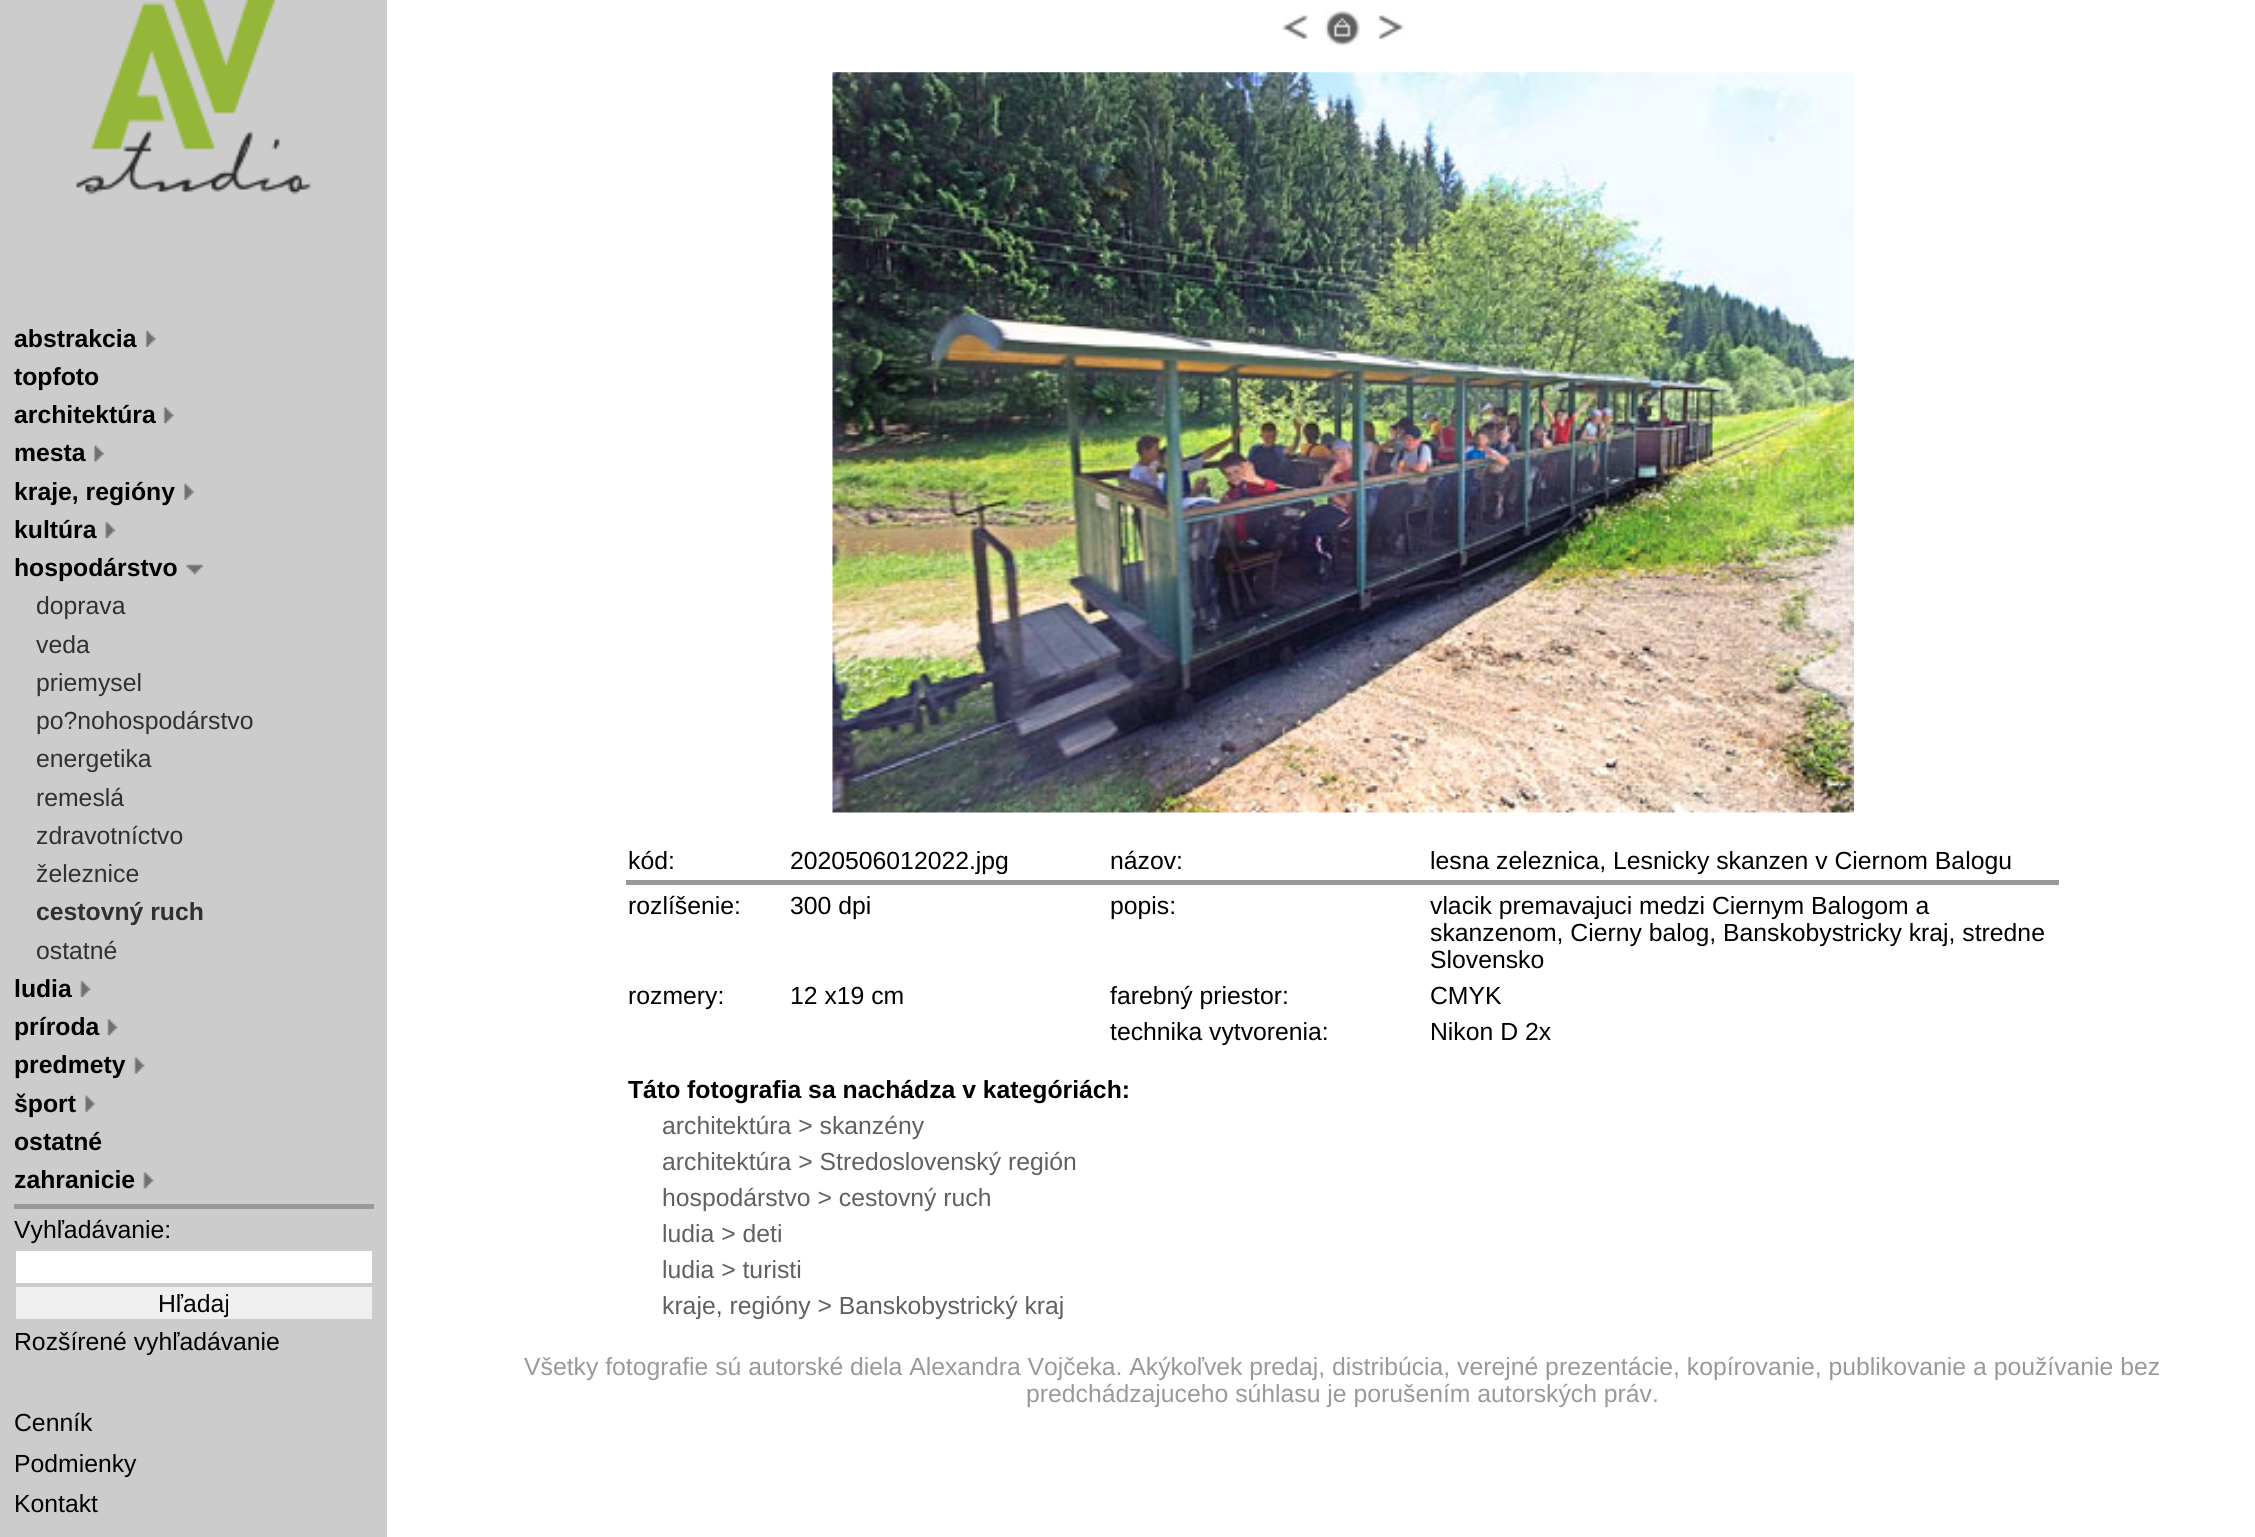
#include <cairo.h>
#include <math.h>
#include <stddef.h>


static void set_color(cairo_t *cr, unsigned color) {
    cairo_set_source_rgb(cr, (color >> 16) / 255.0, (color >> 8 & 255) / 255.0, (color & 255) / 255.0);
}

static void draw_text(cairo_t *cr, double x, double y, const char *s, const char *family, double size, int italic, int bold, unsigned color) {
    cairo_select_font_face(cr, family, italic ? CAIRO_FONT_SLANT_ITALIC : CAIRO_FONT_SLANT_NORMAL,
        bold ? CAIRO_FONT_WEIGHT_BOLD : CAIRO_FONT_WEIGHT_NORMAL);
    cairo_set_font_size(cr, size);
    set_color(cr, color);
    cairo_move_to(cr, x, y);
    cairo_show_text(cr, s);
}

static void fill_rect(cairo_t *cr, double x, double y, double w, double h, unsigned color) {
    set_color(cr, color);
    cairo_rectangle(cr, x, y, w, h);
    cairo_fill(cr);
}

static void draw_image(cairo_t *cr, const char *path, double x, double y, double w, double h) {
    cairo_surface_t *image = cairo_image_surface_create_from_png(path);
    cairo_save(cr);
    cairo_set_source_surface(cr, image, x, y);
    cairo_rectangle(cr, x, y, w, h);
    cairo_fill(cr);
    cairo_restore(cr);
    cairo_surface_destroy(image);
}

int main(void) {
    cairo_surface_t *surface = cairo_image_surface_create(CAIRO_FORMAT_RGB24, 2255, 1537);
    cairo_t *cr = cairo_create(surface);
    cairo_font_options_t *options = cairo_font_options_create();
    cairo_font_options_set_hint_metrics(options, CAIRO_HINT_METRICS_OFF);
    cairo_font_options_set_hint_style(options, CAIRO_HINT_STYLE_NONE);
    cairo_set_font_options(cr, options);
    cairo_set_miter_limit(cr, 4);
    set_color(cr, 0xFFFFFF);
    cairo_paint(cr);
    fill_rect(cr, 0, 0, 387, 1537, 0xCCCCCC);
    draw_image(cr, "assets/img1.png", 76, 0, 236, 195);
    draw_text(cr, 14, 347, "abstrakcia", "Liberation Sans", 24.75, 0, 1, 0x000000);
    draw_image(cr, "assets/img2.png", 145, 330, 11, 17);
    draw_text(cr, 14, 385, "topfoto", "Liberation Sans", 24.75, 0, 1, 0x000000);
    draw_text(cr, 14, 423, "architektúra", "Liberation Sans", 24.75, 0, 1, 0x000000);
    draw_image(cr, "assets/img3.png", 163, 407, 11, 17);
    draw_text(cr, 14, 461, "mesta", "Liberation Sans", 24.75, 0, 1, 0x000000);
    draw_image(cr, "assets/img4.png", 94, 445, 11, 17);
    draw_text(cr, 14, 500, "kraje, regióny", "Liberation Sans", 24.75, 0, 1, 0x000000);
    draw_image(cr, "assets/img5.png", 184, 483, 11, 17);
    draw_text(cr, 14, 538, "kultúra", "Liberation Sans", 24.75, 0, 1, 0x000000);
    draw_image(cr, "assets/img6.png", 105, 521, 11, 17);
    draw_text(cr, 14, 576, "hospodárstvo", "Liberation Sans", 24.75, 0, 1, 0x000000);
    draw_image(cr, "assets/img7.png", 186, 564, 18, 11);
    draw_text(cr, 36, 614, "doprava", "Liberation Sans", 24.75, 0, 0, 0x303030);
    draw_text(cr, 36, 653, "veda", "Liberation Sans", 24.75, 0, 0, 0x303030);
    draw_text(cr, 36, 691, "priemysel", "Liberation Sans", 24.75, 0, 0, 0x303030);
    draw_text(cr, 36, 729, "po?nohospodárstvo", "Liberation Sans", 24.75, 0, 0, 0x303030);
    draw_text(cr, 36, 767, "energetika", "Liberation Sans", 24.75, 0, 0, 0x303030);
    draw_text(cr, 36, 806, "remeslá", "Liberation Sans", 24.75, 0, 0, 0x303030);
    draw_text(cr, 36, 844, "zdravotníctvo", "Liberation Sans", 24.75, 0, 0, 0x303030);
    draw_text(cr, 36, 882, "železnice", "Liberation Sans", 24.75, 0, 0, 0x303030);
    draw_text(cr, 36, 920, "cestovný ruch", "Liberation Sans", 24.75, 0, 1, 0x303030);
    draw_text(cr, 36, 959, "ostatné", "Liberation Sans", 24.75, 0, 0, 0x303030);
    draw_text(cr, 14, 997, "ludia", "Liberation Sans", 24.75, 0, 1, 0x000000);
    draw_image(cr, "assets/img8.png", 80, 980, 11, 17);
    draw_text(cr, 14, 1035, "príroda", "Liberation Sans", 24.75, 0, 1, 0x000000);
    draw_image(cr, "assets/img9.png", 107, 1019, 11, 17);
    draw_text(cr, 14, 1073, "predmety", "Liberation Sans", 24.75, 0, 1, 0x000000);
    draw_image(cr, "assets/img10.png", 134, 1057, 11, 17);
    draw_text(cr, 14, 1112, "šport", "Liberation Sans", 24.75, 0, 1, 0x000000);
    draw_image(cr, "assets/img11.png", 85, 1095, 11, 17);
    draw_text(cr, 14, 1150, "ostatné", "Liberation Sans", 24.75, 0, 1, 0x000000);
    draw_text(cr, 14, 1188, "zahranicie", "Liberation Sans", 24.75, 0, 1, 0x000000);
    draw_image(cr, "assets/img9.png", 143, 1172, 11, 17);
    fill_rect(cr, 14, 1204, 360, 5, 0x999999);
    draw_text(cr, 14, 1238, "Vyhľadávanie:", "Liberation Sans", 24.75, 0, 0, 0x000000);
    fill_rect(cr, 16, 1251, 356, 32, 0xFFFFFF);
    fill_rect(cr, 16, 1287, 356, 32, 0xEFEFEF);
    draw_text(cr, 158, 1312, "Hľadaj", "Liberation Sans", 24.75, 0, 0, 0x000000);
    draw_text(cr, 14, 1350, "Rozšírené vyhľadávanie", "Liberation Sans", 24.75, 0, 0, 0x000000);
    draw_text(cr, 14, 1431, "Cenník", "Liberation Sans", 24.75, 0, 0, 0x000000);
    draw_text(cr, 14, 1472, "Podmienky", "Liberation Sans", 24.75, 0, 0, 0x000000);
    draw_text(cr, 14, 1512, "Kontakt", "Liberation Sans", 24.75, 0, 0, 0x000000);
    draw_image(cr, "assets/img12.png", 1282, 15, 26, 25);
    draw_image(cr, "assets/img13.png", 1324, 11, 36, 35);
    draw_image(cr, "assets/img14.png", 1378, 15, 27, 25);
    draw_image(cr, "assets/img15.png", 832, 72, 1022, 741);
    draw_text(cr, 628, 869, "kód:", "Liberation Sans", 24.75, 0, 0, 0x000000);
    draw_text(cr, 790, 869, "2020506012022.jpg", "Liberation Sans", 24.75, 0, 0, 0x000000);
    draw_text(cr, 1110, 869, "názov:", "Liberation Sans", 24.75, 0, 0, 0x000000);
    draw_text(cr, 1430, 869, "lesna zeleznica, Lesnicky skanzen v Ciernom Balogu", "Liberation Sans", 24.75, 0, 0, 0x000000);
    fill_rect(cr, 626, 880, 1433, 5, 0x999999);
    draw_text(cr, 628, 914, "rozlíšenie:", "Liberation Sans", 24.75, 0, 0, 0x000000);
    draw_text(cr, 790, 914, "300 dpi", "Liberation Sans", 24.75, 0, 0, 0x000000);
    draw_text(cr, 1110, 914, "popis:", "Liberation Sans", 24.75, 0, 0, 0x000000);
    draw_text(cr, 1430, 914, "vlacik premavajuci medzi Ciernym Balogom a", "Liberation Sans", 24.75, 0, 0, 0x000000);
    draw_text(cr, 1430, 941, "skanzenom, Cierny balog, Banskobystricky kraj, stredne", "Liberation Sans", 24.75, 0, 0, 0x000000);
    draw_text(cr, 1430, 968, "Slovensko", "Liberation Sans", 24.75, 0, 0, 0x000000);
    draw_text(cr, 628, 1004, "rozmery:", "Liberation Sans", 24.75, 0, 0, 0x000000);
    draw_text(cr, 790, 1004, "12 x19 cm", "Liberation Sans", 24.75, 0, 0, 0x000000);
    draw_text(cr, 1110, 1004, "farebný priestor:", "Liberation Sans", 24.75, 0, 0, 0x000000);
    draw_text(cr, 1430, 1004, "CMYK", "Liberation Sans", 24.75, 0, 0, 0x000000);
    draw_text(cr, 1110, 1040, "technika vytvorenia:", "Liberation Sans", 24.75, 0, 0, 0x000000);
    draw_text(cr, 1430, 1040, "Nikon D 2x", "Liberation Sans", 24.75, 0, 0, 0x000000);
    draw_text(cr, 628, 1098, "Táto fotografia sa nachádza v kategóriách:", "Liberation Sans", 24.75, 0, 1, 0x000000);
    draw_text(cr, 662, 1134, "architektúra > skanzény", "Liberation Sans", 24.75, 0, 0, 0x606060);
    draw_text(cr, 662, 1170, "architektúra > Stredoslovenský región", "Liberation Sans", 24.75, 0, 0, 0x606060);
    draw_text(cr, 662, 1206, "hospodárstvo > cestovný ruch", "Liberation Sans", 24.75, 0, 0, 0x606060);
    draw_text(cr, 662, 1242, "ludia > deti", "Liberation Sans", 24.75, 0, 0, 0x606060);
    draw_text(cr, 662, 1278, "ludia > turisti", "Liberation Sans", 24.75, 0, 0, 0x606060);
    draw_text(cr, 662, 1314, "kraje, regióny > Banskobystrický kraj", "Liberation Sans", 24.75, 0, 0, 0x606060);
    draw_text(cr, 524, 1375, "Všetky fotografie sú autorské diela Alexandra Vojčeka. Akýkoľvek predaj, distribúcia, verejné prezentácie, kopírovanie, publikovanie a používanie bez", "Liberation Sans", 24.75, 0, 0, 0x999999);
    draw_text(cr, 1026, 1402, "predchádzajuceho súhlasu je porušením autorských práv.", "Liberation Sans", 24.75, 0, 0, 0x999999);
    cairo_surface_write_to_png(surface, "output.png");
    cairo_font_options_destroy(options);
    cairo_destroy(cr);
    cairo_surface_destroy(surface);
    return 0;
}
